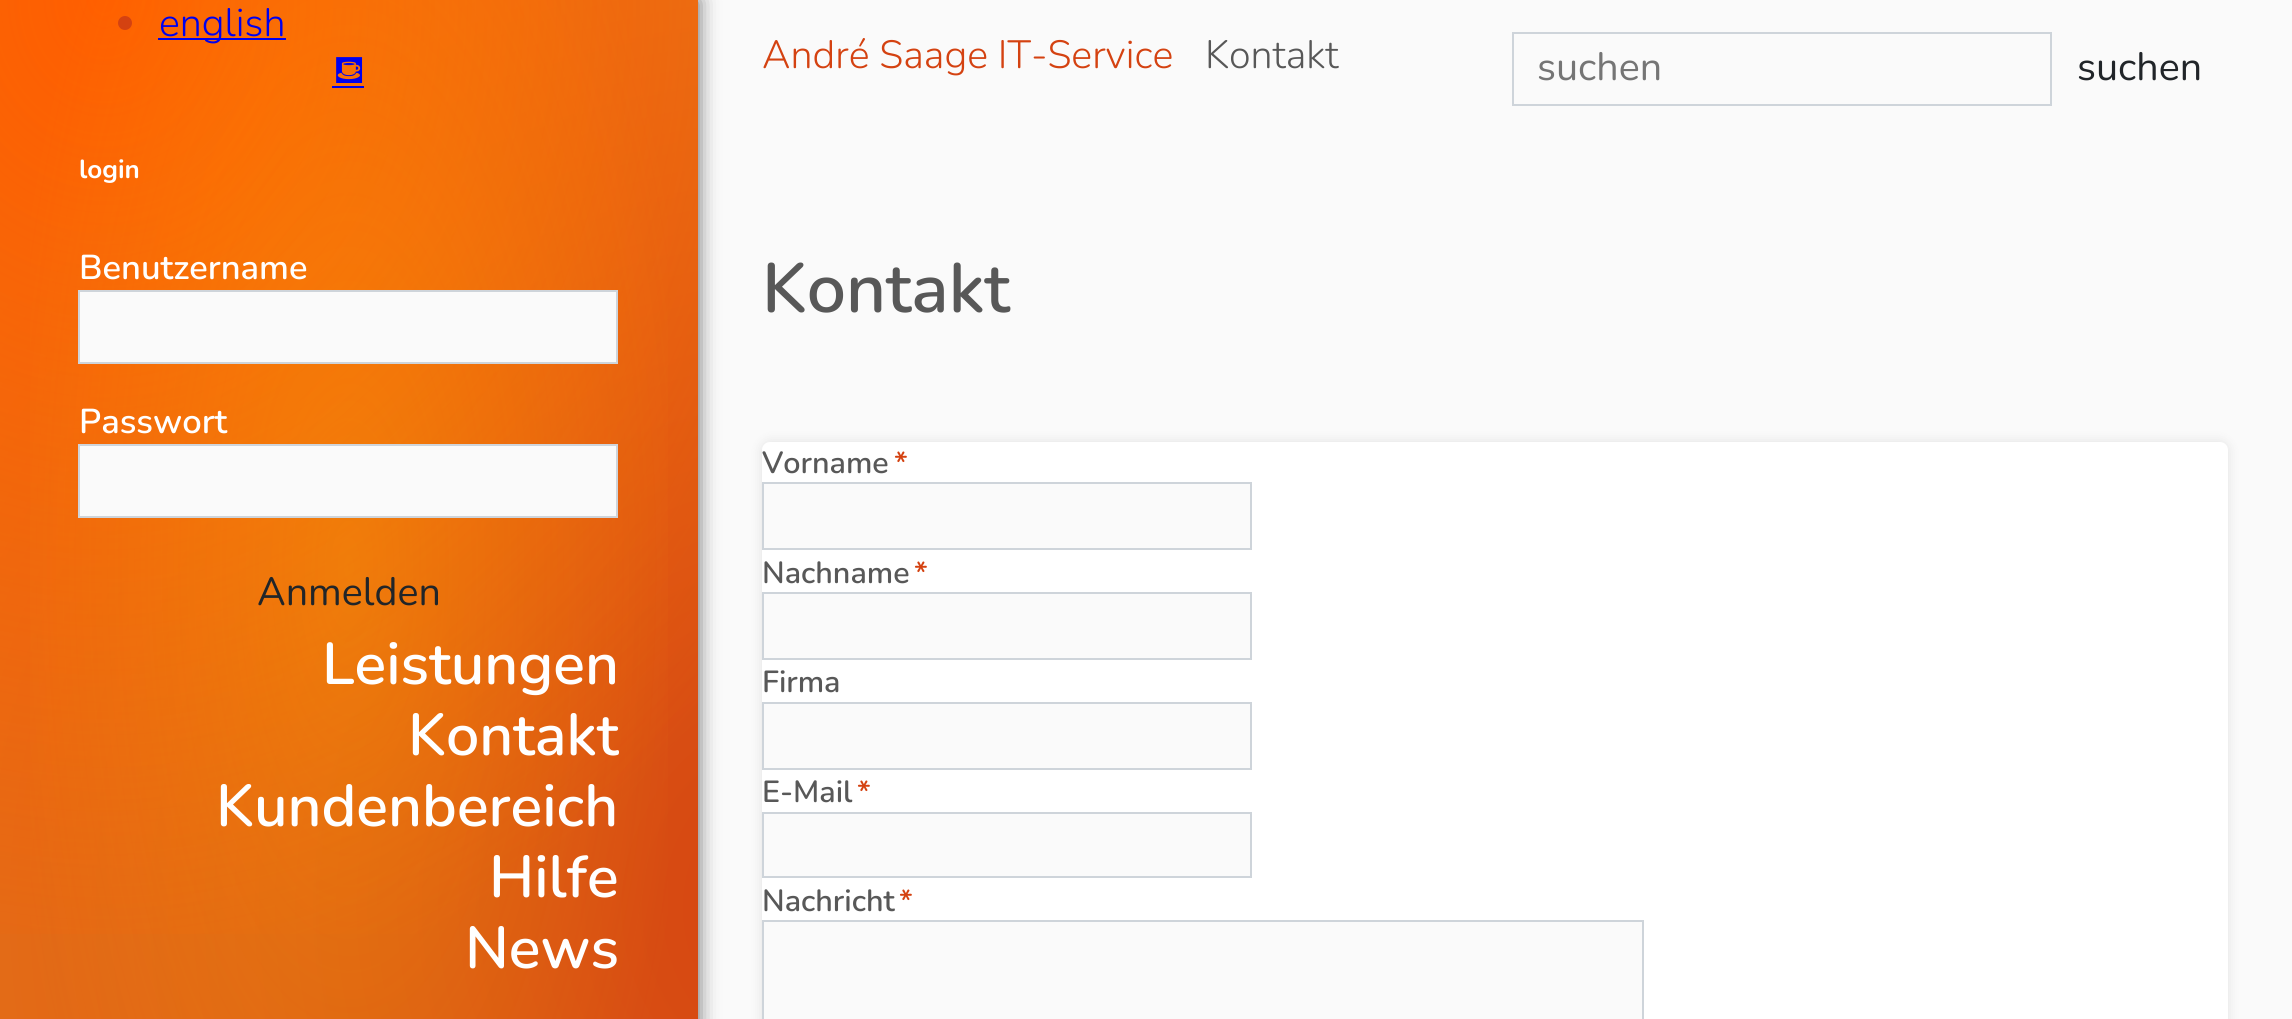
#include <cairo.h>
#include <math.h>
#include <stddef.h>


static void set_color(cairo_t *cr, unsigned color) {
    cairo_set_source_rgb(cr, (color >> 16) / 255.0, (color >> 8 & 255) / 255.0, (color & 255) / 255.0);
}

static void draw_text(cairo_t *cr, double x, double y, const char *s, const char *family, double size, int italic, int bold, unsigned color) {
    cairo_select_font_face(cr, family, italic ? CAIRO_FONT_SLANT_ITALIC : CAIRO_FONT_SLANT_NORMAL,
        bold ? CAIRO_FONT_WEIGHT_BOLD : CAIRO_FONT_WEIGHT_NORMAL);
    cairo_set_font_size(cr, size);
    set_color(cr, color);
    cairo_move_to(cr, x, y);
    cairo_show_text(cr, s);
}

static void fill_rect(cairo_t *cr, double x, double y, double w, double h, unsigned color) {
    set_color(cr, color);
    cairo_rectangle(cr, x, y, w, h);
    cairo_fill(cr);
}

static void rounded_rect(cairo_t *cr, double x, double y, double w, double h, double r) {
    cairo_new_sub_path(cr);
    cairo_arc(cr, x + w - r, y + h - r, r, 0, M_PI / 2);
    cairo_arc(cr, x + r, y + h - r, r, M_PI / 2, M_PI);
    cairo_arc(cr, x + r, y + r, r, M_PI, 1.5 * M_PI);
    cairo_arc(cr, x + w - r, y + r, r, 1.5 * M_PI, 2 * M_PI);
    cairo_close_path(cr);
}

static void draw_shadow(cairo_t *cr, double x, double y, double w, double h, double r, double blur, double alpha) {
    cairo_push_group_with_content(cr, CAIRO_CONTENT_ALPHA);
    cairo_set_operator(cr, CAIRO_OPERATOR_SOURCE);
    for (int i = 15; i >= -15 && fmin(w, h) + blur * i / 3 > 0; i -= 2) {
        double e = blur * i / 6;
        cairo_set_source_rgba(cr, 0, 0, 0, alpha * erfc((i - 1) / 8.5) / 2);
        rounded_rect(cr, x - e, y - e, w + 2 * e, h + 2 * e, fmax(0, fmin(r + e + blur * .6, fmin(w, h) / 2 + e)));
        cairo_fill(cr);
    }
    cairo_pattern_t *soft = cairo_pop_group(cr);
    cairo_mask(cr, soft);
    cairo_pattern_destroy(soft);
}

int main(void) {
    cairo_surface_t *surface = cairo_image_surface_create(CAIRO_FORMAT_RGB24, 2292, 1019);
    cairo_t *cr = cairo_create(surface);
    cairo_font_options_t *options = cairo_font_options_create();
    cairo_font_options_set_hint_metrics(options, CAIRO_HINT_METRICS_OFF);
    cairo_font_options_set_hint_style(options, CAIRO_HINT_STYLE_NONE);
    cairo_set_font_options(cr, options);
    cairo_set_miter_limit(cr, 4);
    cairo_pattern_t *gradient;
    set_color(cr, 0xFAFAFA);
    cairo_paint(cr);
    set_color(cr, 0x000000);
    draw_shadow(cr, 0, 0, 698, 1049, 0, 10, 0.6);
    gradient = cairo_pattern_create_radial(0, 0, 0, 0, 0, 1);
    cairo_pattern_set_matrix(gradient, &(cairo_matrix_t){1.0 / 1047, 0, 0, 1.0 / 1021, -1.0 * 838 / 1047, -1.0 * 907 / 1021});
    cairo_pattern_add_color_stop_rgba(gradient, 0, 0.831, 0.259, 0.067, 1);
    cairo_pattern_add_color_stop_rgba(gradient, 1, 0.906, 0.459, 0.094, 1);
    cairo_set_source(cr, gradient);
    cairo_pattern_destroy(gradient);
    cairo_rectangle(cr, 0, 0, 698, 1019);
    cairo_fill(cr);
    gradient = cairo_pattern_create_radial(0, 0, 0, 0, 0, 1);
    cairo_pattern_set_matrix(gradient, &(cairo_matrix_t){1.0 / 838, 0, 0, 1.0 / 1021, -1.0 * 105 / 838, -1.0 * 0 / 1021});
    cairo_pattern_add_color_stop_rgba(gradient, 0, 1, 0.369, 0, 1);
    cairo_pattern_add_color_stop_rgba(gradient, 1, 1, 0.369, 0, 0);
    cairo_set_source(cr, gradient);
    cairo_pattern_destroy(gradient);
    cairo_rectangle(cr, 0, 0, 698, 934);
    cairo_fill(cr);
    gradient = cairo_pattern_create_radial(0, 0, 0, 0, 0, 1);
    cairo_pattern_set_matrix(gradient, &(cairo_matrix_t){1.0 / 349, 0, 0, 1.0 / 907, -1.0 * 349 / 349, -1.0 * 567 / 907});
    cairo_pattern_add_color_stop_rgba(gradient, 0, 1, 0.835, 0, 0.25);
    cairo_pattern_add_color_stop_rgba(gradient, 1, 1, 0.835, 0, 0);
    cairo_set_source(cr, gradient);
    cairo_pattern_destroy(gradient);
    cairo_rectangle(cr, 30, 0, 638, 1019);
    cairo_fill(cr);
    set_color(cr, 0xD44211);
    cairo_arc(cr, 125, 23, 7, 0, 2 * M_PI);
    cairo_fill(cr);
    fill_rect(cr, 158, 38, 128, 2, 0x0000EE);
    draw_text(cr, 159, 36, "english", "Nunito Light", 39.4, 0, 0, 0x0000EE);
    draw_text(cr, 333, 83, "⛾", "STIX Two Math", 39.4, 0, 0, 0x0000EE);
    fill_rect(cr, 332, 86, 32, 2, 0x0000EE);
    draw_text(cr, 79, 178, "login", "Nunito", 26, 0, 1, 0xFFFFFF);
    draw_text(cr, 79, 279, "Benutzername", "Nunito SemiBold", 34.5, 0, 0, 0xFFFFFF);
    set_color(cr, 0xFAFAFA);
    cairo_rectangle(cr, 79, 291, 538, 72);
    cairo_fill_preserve(cr);
    set_color(cr, 0xCED4DA);
    cairo_stroke(cr);
    draw_text(cr, 79, 433, "Passwort", "Nunito SemiBold", 34.5, 0, 0, 0xFFFFFF);
    set_color(cr, 0xFAFAFA);
    cairo_rectangle(cr, 79, 445, 538, 72);
    cairo_fill_preserve(cr);
    set_color(cr, 0xCED4DA);
    cairo_stroke(cr);
    draw_text(cr, 257, 605, "Anmelden", "Nunito", 39.4, 0, 0, 0x212529);
    draw_text(cr, 322, 684, "Leistungen", "Nunito SemiBold", 59, 0, 0, 0xFFFFFF);
    draw_text(cr, 408, 755, "Kontakt", "Nunito SemiBold", 59, 0, 0, 0xFFFFFF);
    draw_text(cr, 216, 826, "Kundenbereich", "Nunito SemiBold", 59, 0, 0, 0xFFFFFF);
    draw_text(cr, 489, 897, "Hilfe", "Nunito SemiBold", 59, 0, 0, 0xFFFFFF);
    draw_text(cr, 465, 968, "News", "Nunito SemiBold", 59, 0, 0, 0xFFFFFF);
    draw_text(cr, 762, 312, "Kontakt", "Nunito SemiBold", 69.5, 0, 0, 0x585858);
    set_color(cr, 0x000000);
    draw_shadow(cr, 762, 442, 1466, 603, 8, 6, 0.1);
    set_color(cr, 0xFFFFFF);
    rounded_rect(cr, 762, 442, 1466, 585, 8);
    cairo_fill(cr);
    draw_text(cr, 762, 473, "Vorname", "Nunito SemiBold", 30.5, 0, 0, 0x585858);
    draw_text(cr, 894, 473, "*", "Nunito SemiBold", 30.5, 0, 0, 0xD44211);
    set_color(cr, 0xFAFAFA);
    cairo_rectangle(cr, 763, 483, 488, 66);
    cairo_fill_preserve(cr);
    set_color(cr, 0xCED4DA);
    cairo_stroke(cr);
    draw_text(cr, 762, 583, "Nachname", "Nunito SemiBold", 30.5, 0, 0, 0x585858);
    draw_text(cr, 914, 583, "*", "Nunito SemiBold", 30.5, 0, 0, 0xD44211);
    set_color(cr, 0xFAFAFA);
    cairo_rectangle(cr, 763, 593, 488, 66);
    cairo_fill_preserve(cr);
    set_color(cr, 0xCED4DA);
    cairo_stroke(cr);
    draw_text(cr, 762, 692, "Firma", "Nunito SemiBold", 30.5, 0, 0, 0x585858);
    set_color(cr, 0xFAFAFA);
    cairo_rectangle(cr, 763, 703, 488, 66);
    cairo_fill_preserve(cr);
    set_color(cr, 0xCED4DA);
    cairo_stroke(cr);
    draw_text(cr, 762, 802, "E-Mail", "Nunito SemiBold", 30.5, 0, 0, 0x585858);
    draw_text(cr, 857, 802, "*", "Nunito SemiBold", 30.5, 0, 0, 0xD44211);
    set_color(cr, 0xFAFAFA);
    cairo_rectangle(cr, 763, 813, 488, 64);
    cairo_fill_preserve(cr);
    set_color(cr, 0xCED4DA);
    cairo_stroke(cr);
    draw_text(cr, 762, 911, "Nachricht", "Nunito SemiBold", 30.5, 0, 0, 0x585858);
    draw_text(cr, 899, 911, "*", "Nunito SemiBold", 30.5, 0, 0, 0xD44211);
    set_color(cr, 0xFAFAFA);
    cairo_rectangle(cr, 763, 921, 880, 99);
    cairo_fill_preserve(cr);
    set_color(cr, 0xCED4DA);
    cairo_stroke(cr);
    draw_text(cr, 762, 68, "André Saage IT-Service", "Nunito Light", 39.4, 0, 0, 0xD44211);
    draw_text(cr, 1205, 68, "Kontakt", "Nunito Light", 39.4, 0, 0, 0x585858);
    cairo_rectangle(cr, 1513, 33, 538, 72);
    set_color(cr, 0xCED4DA);
    cairo_stroke(cr);
    draw_text(cr, 1537, 80, "suchen", "Nunito", 39.4, 0, 0, 0x757575);
    draw_text(cr, 2077, 80, "suchen", "Nunito", 39.4, 0, 0, 0x212529);
    cairo_surface_write_to_png(surface, "output.png");
    cairo_font_options_destroy(options);
    cairo_destroy(cr);
    cairo_surface_destroy(surface);
    return 0;
}
